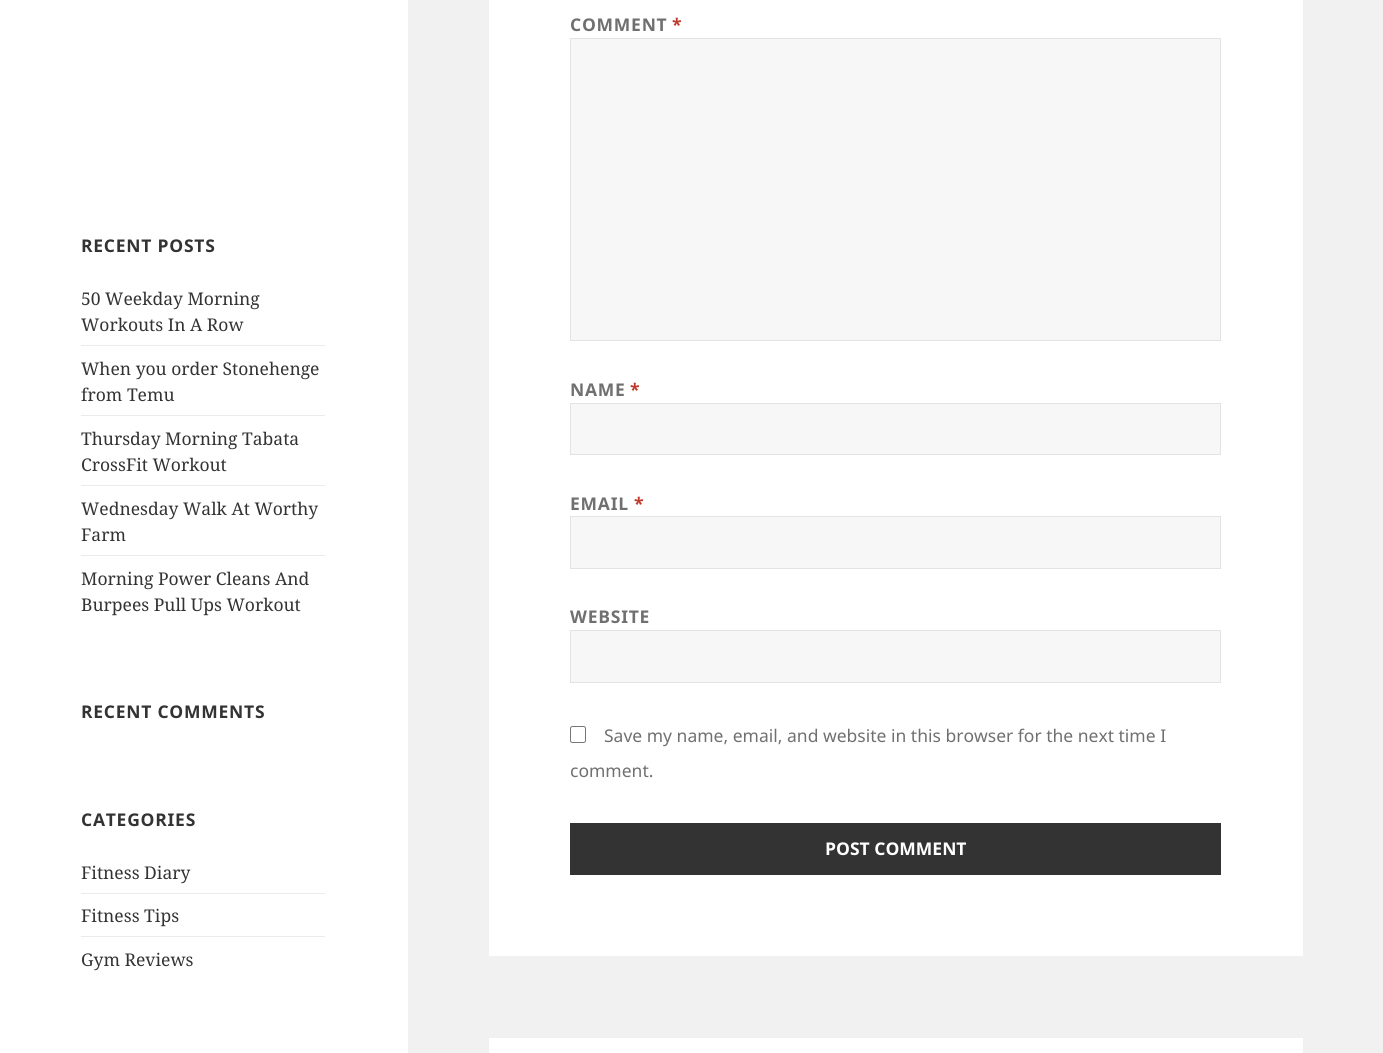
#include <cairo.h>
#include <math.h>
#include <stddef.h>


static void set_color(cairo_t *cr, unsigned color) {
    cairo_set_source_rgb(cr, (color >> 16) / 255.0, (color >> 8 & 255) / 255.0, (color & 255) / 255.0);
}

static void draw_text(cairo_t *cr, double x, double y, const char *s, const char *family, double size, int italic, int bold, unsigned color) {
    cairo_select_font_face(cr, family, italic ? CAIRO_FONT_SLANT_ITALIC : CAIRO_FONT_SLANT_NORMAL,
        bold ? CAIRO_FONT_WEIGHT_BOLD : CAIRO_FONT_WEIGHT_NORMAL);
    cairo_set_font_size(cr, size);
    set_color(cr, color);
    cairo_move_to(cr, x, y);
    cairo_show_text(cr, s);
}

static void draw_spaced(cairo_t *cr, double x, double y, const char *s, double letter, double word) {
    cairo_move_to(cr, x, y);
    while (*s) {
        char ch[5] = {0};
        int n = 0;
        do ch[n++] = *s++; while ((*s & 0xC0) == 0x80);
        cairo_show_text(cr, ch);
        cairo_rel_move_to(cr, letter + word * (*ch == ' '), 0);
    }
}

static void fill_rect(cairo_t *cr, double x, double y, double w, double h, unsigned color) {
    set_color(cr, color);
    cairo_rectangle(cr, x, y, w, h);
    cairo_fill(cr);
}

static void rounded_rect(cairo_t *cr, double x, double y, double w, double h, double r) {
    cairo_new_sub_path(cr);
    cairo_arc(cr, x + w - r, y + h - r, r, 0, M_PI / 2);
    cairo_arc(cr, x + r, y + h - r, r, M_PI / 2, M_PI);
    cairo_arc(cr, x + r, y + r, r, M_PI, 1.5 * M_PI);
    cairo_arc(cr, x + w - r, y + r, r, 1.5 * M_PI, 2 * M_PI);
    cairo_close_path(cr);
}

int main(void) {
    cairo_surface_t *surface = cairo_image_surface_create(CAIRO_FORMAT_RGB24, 1383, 1053);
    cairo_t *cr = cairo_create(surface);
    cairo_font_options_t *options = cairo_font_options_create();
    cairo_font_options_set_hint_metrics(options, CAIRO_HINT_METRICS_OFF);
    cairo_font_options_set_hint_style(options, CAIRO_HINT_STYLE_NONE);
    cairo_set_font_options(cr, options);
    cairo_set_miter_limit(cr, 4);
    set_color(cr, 0xF1F1F1);
    cairo_paint(cr);
    fill_rect(cr, 0, 0, 408, 1053, 0xFFFFFF);
    cairo_select_font_face(cr, "Noto Sans", CAIRO_FONT_SLANT_NORMAL, CAIRO_FONT_WEIGHT_BOLD);
    cairo_set_font_size(cr, 17.5);
    set_color(cr, 0x333333);
    draw_spaced(cr, 81, 252, "RECENT POSTS", 0.75, 0);
    draw_text(cr, 81, 305, "50 Weekday Morning", "Noto Serif", 17.5, 0, 0, 0x333333);
    draw_text(cr, 81, 331, "Workouts In A Row", "Noto Serif", 17.5, 0, 0, 0x333333);
    fill_rect(cr, 81, 345, 244, 1, 0xEBEBEB);
    draw_text(cr, 81, 375, "When you order Stonehenge", "Noto Serif", 17.5, 0, 0, 0x333333);
    draw_text(cr, 81, 401, "from Temu", "Noto Serif", 17.5, 0, 0, 0x333333);
    fill_rect(cr, 81, 415, 244, 1, 0xEBEBEB);
    draw_text(cr, 81, 445, "Thursday Morning Tabata", "Noto Serif", 17.5, 0, 0, 0x333333);
    draw_text(cr, 81, 471, "CrossFit Workout", "Noto Serif", 17.5, 0, 0, 0x333333);
    fill_rect(cr, 81, 485, 244, 1, 0xEBEBEB);
    draw_text(cr, 81, 515, "Wednesday Walk At Worthy", "Noto Serif", 17.5, 0, 0, 0x333333);
    draw_text(cr, 81, 541, "Farm", "Noto Serif", 17.5, 0, 0, 0x333333);
    fill_rect(cr, 81, 555, 244, 1, 0xEBEBEB);
    draw_text(cr, 81, 585, "Morning Power Cleans And", "Noto Serif", 17.5, 0, 0, 0x333333);
    draw_text(cr, 81, 611, "Burpees Pull Ups Workout", "Noto Serif", 17.5, 0, 0, 0x333333);
    cairo_select_font_face(cr, "Noto Sans", CAIRO_FONT_SLANT_NORMAL, CAIRO_FONT_WEIGHT_BOLD);
    draw_spaced(cr, 81, 718, "RECENT COMMENTS", 0.75, 0);
    draw_spaced(cr, 81, 826, "CATEGORIES", 0.75, 0);
    draw_text(cr, 81, 879, "Fitness Diary", "Noto Serif", 17.5, 0, 0, 0x333333);
    fill_rect(cr, 81, 893, 244, 1, 0xEBEBEB);
    draw_text(cr, 81, 922, "Fitness Tips", "Noto Serif", 17.5, 0, 0, 0x333333);
    fill_rect(cr, 81, 936, 244, 1, 0xEBEBEB);
    draw_text(cr, 81, 966, "Gym Reviews", "Noto Serif", 17.5, 0, 0, 0x333333);
    fill_rect(cr, 489, 0, 814, 956, 0xFFFFFF);
    cairo_select_font_face(cr, "Noto Sans", CAIRO_FONT_SLANT_NORMAL, CAIRO_FONT_WEIGHT_BOLD);
    set_color(cr, 0x707070);
    draw_spaced(cr, 570, 31, "COMMENT", 0.75, 0);
    set_color(cr, 0xC0392B);
    draw_spaced(cr, 672, 31, "*", 0.75, 0);
    set_color(cr, 0xF7F7F7);
    cairo_rectangle(cr, 570.5, 38.5, 650, 302);
    cairo_fill_preserve(cr);
    set_color(cr, 0xE3E3E3);
    cairo_set_line_width(cr, 1);
    cairo_stroke(cr);
    set_color(cr, 0x707070);
    draw_spaced(cr, 570, 396, "NAME", 0.75, 0);
    set_color(cr, 0xC0392B);
    draw_spaced(cr, 630, 396, "*", 0.75, 0);
    set_color(cr, 0xF7F7F7);
    cairo_rectangle(cr, 570.5, 403.5, 650, 51);
    cairo_fill_preserve(cr);
    set_color(cr, 0xE3E3E3);
    cairo_stroke(cr);
    set_color(cr, 0x707070);
    draw_spaced(cr, 570, 510, "EMAIL", 0.75, 0);
    set_color(cr, 0xC0392B);
    draw_spaced(cr, 634, 510, "*", 0.75, 0);
    set_color(cr, 0xF7F7F7);
    cairo_rectangle(cr, 570.5, 516.5, 650, 52);
    cairo_fill_preserve(cr);
    set_color(cr, 0xE3E3E3);
    cairo_stroke(cr);
    set_color(cr, 0x707070);
    draw_spaced(cr, 570, 623, "WEBSITE", 0.75, 0);
    set_color(cr, 0xF7F7F7);
    cairo_rectangle(cr, 570.5, 630.5, 650, 52);
    cairo_fill_preserve(cr);
    set_color(cr, 0xE3E3E3);
    cairo_stroke(cr);
    rounded_rect(cr, 570.5, 726.5, 15, 16, 2);
    set_color(cr, 0x767676);
    cairo_stroke(cr);
    draw_text(cr, 604, 742, "Save my name, email, and website in this browser for the next time I", "Noto Sans", 17.5, 0, 0, 0x707070);
    draw_text(cr, 570, 777, "comment.", "Noto Sans", 17.5, 0, 0, 0x707070);
    fill_rect(cr, 570, 823, 651, 52, 0x333333);
    draw_text(cr, 825, 855, "POST COMMENT", "Noto Sans", 17.5, 0, 1, 0xFFFFFF);
    fill_rect(cr, 489, 1038, 814, 15, 0xFFFFFF);
    cairo_surface_write_to_png(surface, "output.png");
    cairo_font_options_destroy(options);
    cairo_destroy(cr);
    cairo_surface_destroy(surface);
    return 0;
}
